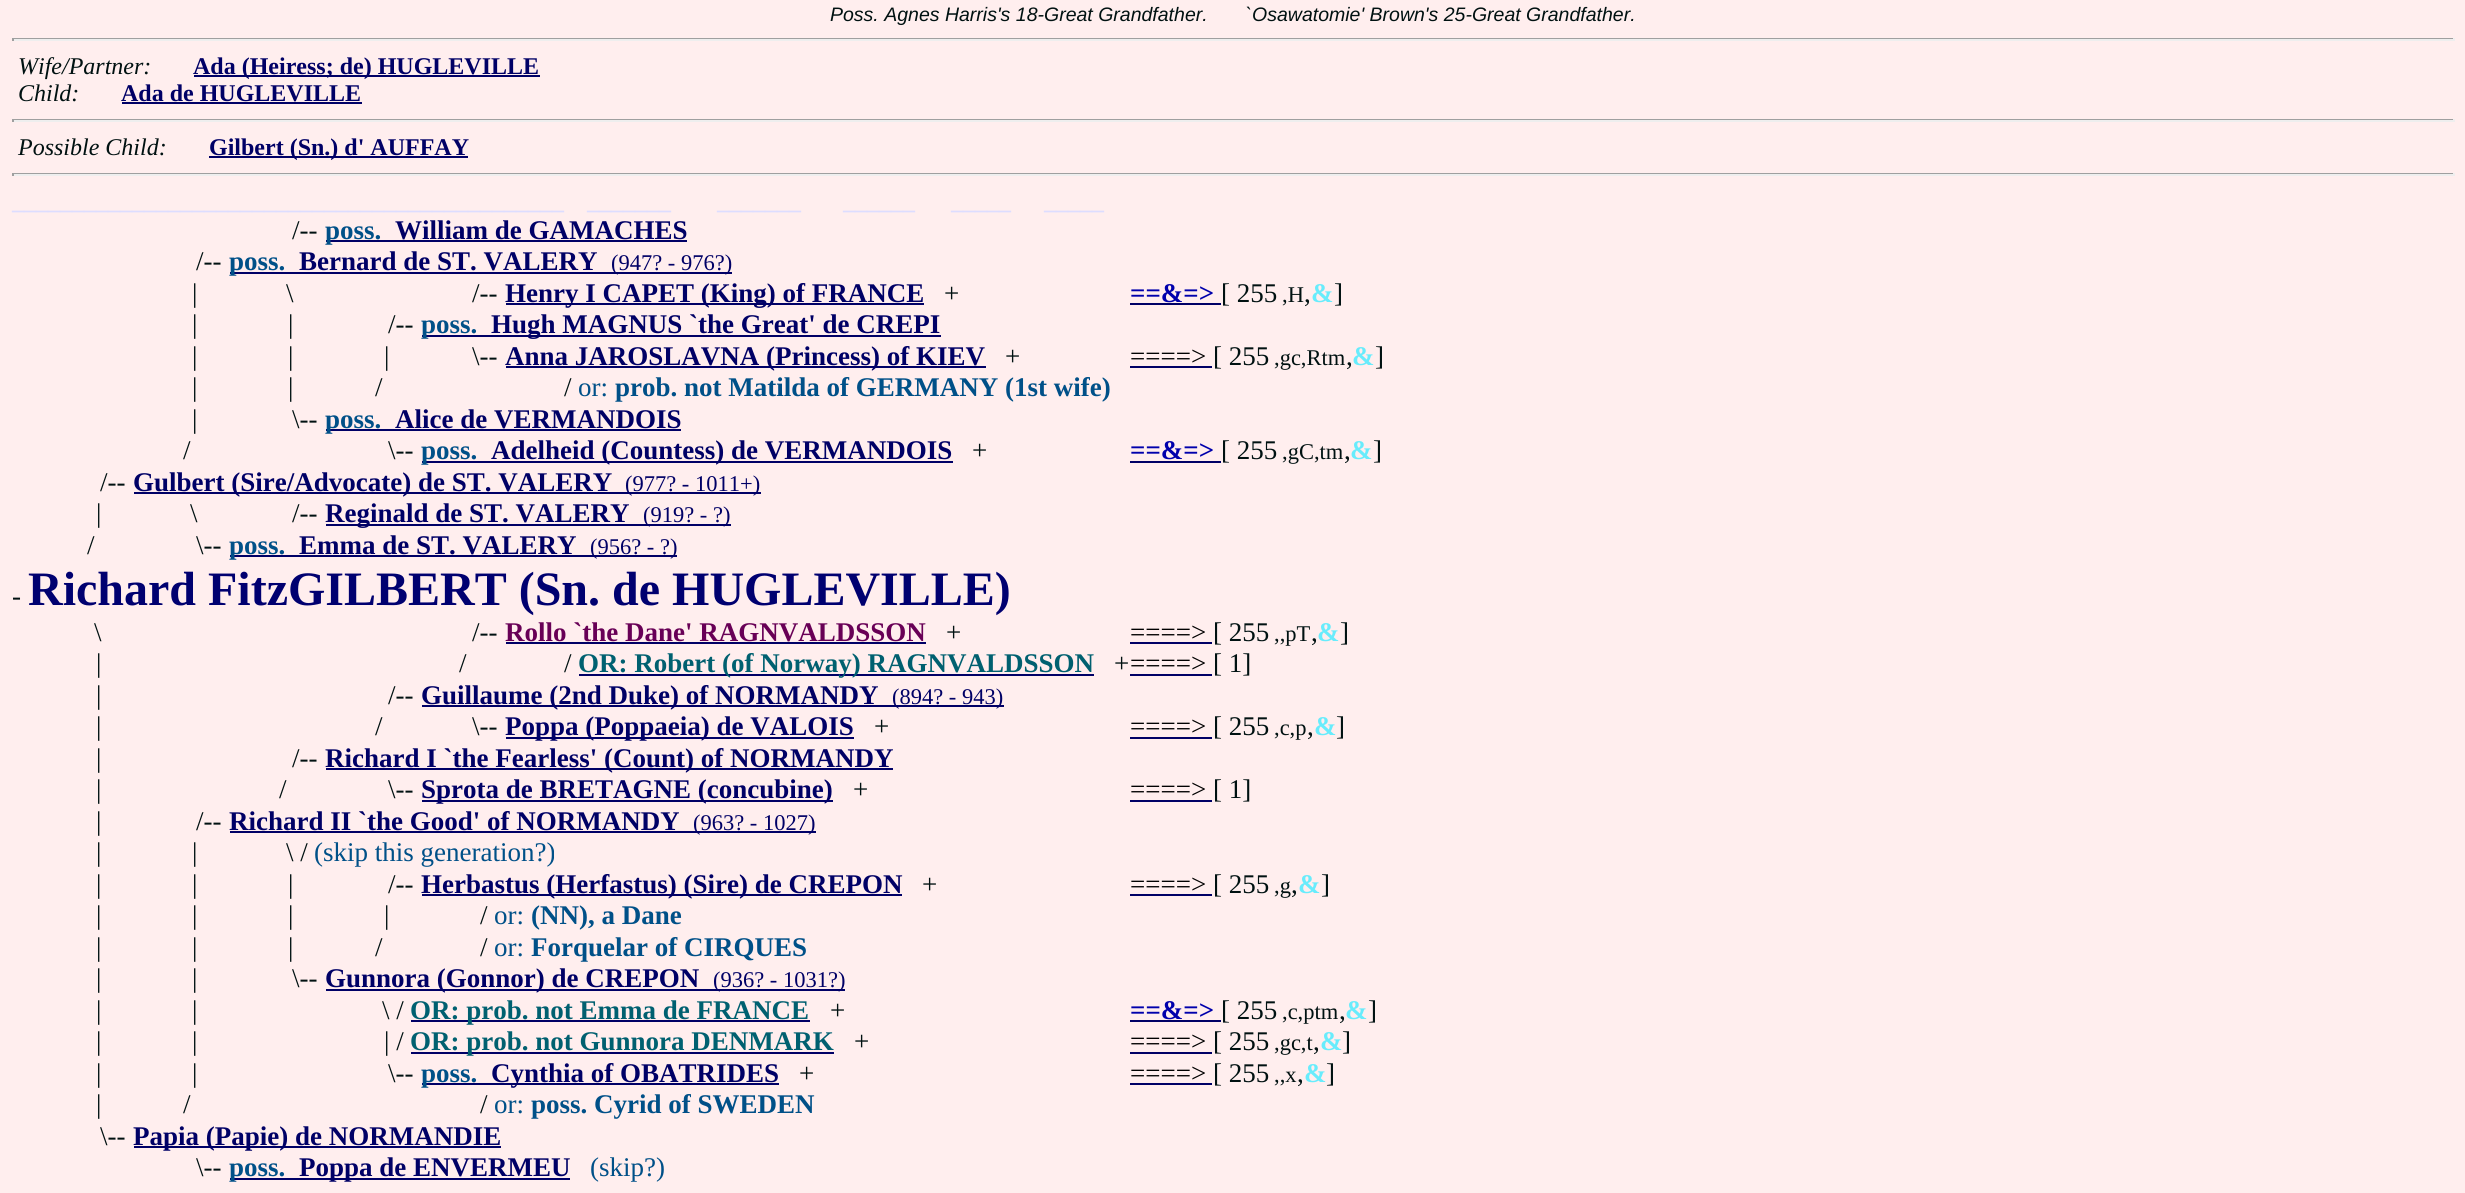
#include <cairo.h>
#include <math.h>
#include <stddef.h>


static void set_color(cairo_t *cr, unsigned color) {
    cairo_set_source_rgb(cr, (color >> 16) / 255.0, (color >> 8 & 255) / 255.0, (color & 255) / 255.0);
}

static void draw_text(cairo_t *cr, double x, double y, const char *s, const char *family, double size, int italic, int bold, unsigned color) {
    cairo_select_font_face(cr, family, italic ? CAIRO_FONT_SLANT_ITALIC : CAIRO_FONT_SLANT_NORMAL,
        bold ? CAIRO_FONT_WEIGHT_BOLD : CAIRO_FONT_WEIGHT_NORMAL);
    cairo_set_font_size(cr, size);
    set_color(cr, color);
    cairo_move_to(cr, x, y);
    cairo_show_text(cr, s);
}

static void fill_rect(cairo_t *cr, double x, double y, double w, double h, unsigned color) {
    set_color(cr, color);
    cairo_rectangle(cr, x, y, w, h);
    cairo_fill(cr);
}

int main(void) {
    cairo_surface_t *surface = cairo_image_surface_create(CAIRO_FORMAT_RGB24, 2465, 1193);
    cairo_t *cr = cairo_create(surface);
    cairo_font_options_t *options = cairo_font_options_create();
    cairo_font_options_set_hint_metrics(options, CAIRO_HINT_METRICS_OFF);
    cairo_font_options_set_hint_style(options, CAIRO_HINT_STYLE_NONE);
    cairo_set_font_options(cr, options);
    cairo_set_miter_limit(cr, 4);
    set_color(cr, 0xFFEEEE);
    cairo_paint(cr);
    draw_text(cr, 830, 21, "Poss. Agnes Harris's 18-Great Grandfather.       `Osawatomie' Brown's 25-Great Grandfather.", "Liberation Sans", 19.5, 1, 0, 0x001111);
    fill_rect(cr, 12, 38, 2442, 1, 0x9F9F9F);
    fill_rect(cr, 2453, 38, 2, 3, 0xEEEEEE);
    fill_rect(cr, 12, 39, 2442, 2, 0xEEEEEE);
    fill_rect(cr, 12, 38, 2, 3, 0x9F9F9F);
    draw_text(cr, 18, 74, "Wife/Partner:", "Liberation Serif", 24, 1, 0, 0x001111);
    fill_rect(cr, 194, 75, 346, 2, 0x000066);
    draw_text(cr, 193, 74, "Ada (Heiress; de) HUGLEVILLE", "Liberation Serif", 24, 0, 1, 0x000066);
    draw_text(cr, 18, 101, "Child:", "Liberation Serif", 24, 1, 0, 0x001111);
    draw_text(cr, 121, 101, "Ada de HUGLEVILLE", "Liberation Serif", 24, 0, 1, 0x000066);
    fill_rect(cr, 122, 102, 240, 2, 0x000066);
    fill_rect(cr, 12, 119, 2442, 1, 0x9F9F9F);
    fill_rect(cr, 2453, 119, 2, 3, 0xEEEEEE);
    fill_rect(cr, 12, 120, 2442, 2, 0xEEEEEE);
    fill_rect(cr, 12, 119, 2, 3, 0x9F9F9F);
    draw_text(cr, 18, 155, "Possible Child:", "Liberation Serif", 24, 1, 0, 0x001111);
    fill_rect(cr, 209, 156, 259, 2, 0x000066);
    draw_text(cr, 209, 155, "Gilbert (Sn.) d' AUFFAY", "Liberation Serif", 24, 0, 1, 0x000066);
    fill_rect(cr, 12, 173, 2442, 1, 0x9F9F9F);
    fill_rect(cr, 2453, 173, 2, 3, 0xEEEEEE);
    fill_rect(cr, 12, 174, 2442, 2, 0xEEEEEE);
    fill_rect(cr, 12, 173, 2, 3, 0x9F9F9F);
    draw_text(cr, 12, 209, "______________________________________________", "Liberation Serif", 24, 0, 1, 0xDDDDFF);
    draw_text(cr, 587, 209, "_______", "Liberation Serif", 24, 0, 1, 0xDDDDFF);
    draw_text(cr, 717, 209, "_______", "Liberation Serif", 24, 0, 1, 0xDDDDFF);
    draw_text(cr, 843, 209, "______", "Liberation Serif", 24, 0, 1, 0xDDDDFF);
    draw_text(cr, 951, 209, "_____", "Liberation Serif", 24, 0, 1, 0xDDDDFF);
    draw_text(cr, 1044, 209, "_____", "Liberation Serif", 24, 0, 1, 0xDDDDFF);
    draw_text(cr, 292, 239, "/--", "Liberation Serif", 27, 0, 0, 0x001111);
    fill_rect(cr, 326, 240, 361, 2, 0x000066);
    draw_text(cr, 325, 239, "poss.", "Liberation Serif", 27, 0, 1, 0x005088);
    draw_text(cr, 395, 239, "William de GAMACHES", "Liberation Serif", 27, 0, 1, 0x000066);
    draw_text(cr, 196, 270, "/--", "Liberation Serif", 27, 0, 0, 0x001111);
    fill_rect(cr, 230, 272, 502, 2, 0x000066);
    draw_text(cr, 229, 270, "poss.", "Liberation Serif", 27, 0, 1, 0x005088);
    draw_text(cr, 299, 270, "Bernard de ST. VALERY", "Liberation Serif", 27, 0, 1, 0x000066);
    draw_text(cr, 611, 270, "(947? - 976?)", "Liberation Serif", 22.5, 0, 0, 0x000066);
    draw_text(cr, 192, 302, "|", "Liberation Serif", 27, 0, 0, 0x001111);
    draw_text(cr, 286, 302, "\\", "Liberation Serif", 27, 0, 0, 0x001111);
    draw_text(cr, 472, 302, "/--", "Liberation Serif", 27, 0, 0, 0x001111);
    fill_rect(cr, 506, 303, 418, 2, 0x000066);
    draw_text(cr, 505, 302, "Henry I CAPET (King) of FRANCE", "Liberation Serif", 27, 0, 1, 0x000066);
    draw_text(cr, 944, 302, "+", "Liberation Serif", 27, 0, 0, 0x001111);
    draw_text(cr, 1130, 302, "==&=>", "Liberation Serif", 27, 0, 1, 0x0000AC);
    fill_rect(cr, 1130, 303, 91, 2, 0x000066);
    draw_text(cr, 1221, 302, "[ 255", "Liberation Serif", 27, 0, 0, 0x001111);
    draw_text(cr, 1282, 302, ",H", "Liberation Serif", 22.5, 0, 0, 0x001111);
    draw_text(cr, 1304, 302, ",", "Liberation Serif", 27, 0, 0, 0x001111);
    draw_text(cr, 1311, 302, "&", "Liberation Serif", 27, 0, 1, 0x68ECFC);
    draw_text(cr, 1334, 302, "]", "Liberation Serif", 27, 0, 0, 0x001111);
    draw_text(cr, 192, 333, "|", "Liberation Serif", 27, 0, 0, 0x001111);
    draw_text(cr, 288, 333, "|", "Liberation Serif", 27, 0, 0, 0x001111);
    draw_text(cr, 388, 333, "/--", "Liberation Serif", 27, 0, 0, 0x001111);
    fill_rect(cr, 422, 335, 519, 2, 0x000066);
    draw_text(cr, 421, 333, "poss.", "Liberation Serif", 27, 0, 1, 0x005088);
    draw_text(cr, 491, 333, "Hugh MAGNUS `the Great' de CREPI", "Liberation Serif", 27, 0, 1, 0x000066);
    draw_text(cr, 192, 365, "|", "Liberation Serif", 27, 0, 0, 0x001111);
    draw_text(cr, 288, 365, "|", "Liberation Serif", 27, 0, 0, 0x001111);
    draw_text(cr, 384, 365, "|", "Liberation Serif", 27, 0, 0, 0x001111);
    draw_text(cr, 472, 365, "\\--", "Liberation Serif", 27, 0, 0, 0x001111);
    fill_rect(cr, 506, 366, 480, 2, 0x000066);
    draw_text(cr, 505, 365, "Anna JAROSLAVNA (Princess) of KIEV", "Liberation Serif", 27, 0, 1, 0x000066);
    draw_text(cr, 1005, 365, "+", "Liberation Serif", 27, 0, 0, 0x001111);
    draw_text(cr, 1130, 365, "====>", "Liberation Serif", 27, 0, 0, 0x000000);
    fill_rect(cr, 1130, 366, 82, 2, 0x000066);
    draw_text(cr, 1213, 365, "[ 255", "Liberation Serif", 27, 0, 0, 0x001111);
    draw_text(cr, 1274, 365, ",gc,Rtm", "Liberation Serif", 22.5, 0, 0, 0x001111);
    draw_text(cr, 1346, 365, ",", "Liberation Serif", 27, 0, 0, 0x001111);
    draw_text(cr, 1352, 365, "&", "Liberation Serif", 27, 0, 1, 0x68ECFC);
    draw_text(cr, 1375, 365, "]", "Liberation Serif", 27, 0, 0, 0x001111);
    draw_text(cr, 192, 396, "|", "Liberation Serif", 27, 0, 0, 0x001111);
    draw_text(cr, 288, 396, "|", "Liberation Serif", 27, 0, 0, 0x001111);
    draw_text(cr, 375, 396, "/", "Liberation Serif", 27, 0, 0, 0x001111);
    draw_text(cr, 564, 396, "/", "Liberation Serif", 27, 0, 0, 0x001111);
    draw_text(cr, 578, 396, "or:", "Liberation Serif", 27, 0, 0, 0x005088);
    draw_text(cr, 615, 396, "prob. not Matilda of GERMANY (1st wife)", "Liberation Serif", 27, 0, 1, 0x005088);
    draw_text(cr, 192, 428, "|", "Liberation Serif", 27, 0, 0, 0x001111);
    draw_text(cr, 292, 428, "\\--", "Liberation Serif", 27, 0, 0, 0x001111);
    fill_rect(cr, 326, 429, 355, 2, 0x000066);
    draw_text(cr, 325, 428, "poss.", "Liberation Serif", 27, 0, 1, 0x005088);
    draw_text(cr, 395, 428, "Alice de VERMANDOIS", "Liberation Serif", 27, 0, 1, 0x000066);
    draw_text(cr, 183, 459, "/", "Liberation Serif", 27, 0, 0, 0x001111);
    draw_text(cr, 388, 459, "\\--", "Liberation Serif", 27, 0, 0, 0x001111);
    fill_rect(cr, 422, 461, 531, 2, 0x000066);
    draw_text(cr, 421, 459, "poss.", "Liberation Serif", 27, 0, 1, 0x005088);
    draw_text(cr, 491, 459, "Adelheid (Countess) de VERMANDOIS", "Liberation Serif", 27, 0, 1, 0x000066);
    draw_text(cr, 972, 459, "+", "Liberation Serif", 27, 0, 0, 0x001111);
    draw_text(cr, 1130, 459, "==&=>", "Liberation Serif", 27, 0, 1, 0x0000AC);
    fill_rect(cr, 1130, 461, 91, 2, 0x000066);
    draw_text(cr, 1221, 459, "[ 255", "Liberation Serif", 27, 0, 0, 0x001111);
    draw_text(cr, 1282, 459, ",gC,tm", "Liberation Serif", 22.5, 0, 0, 0x001111);
    draw_text(cr, 1344, 459, ",", "Liberation Serif", 27, 0, 0, 0x001111);
    draw_text(cr, 1350, 459, "&", "Liberation Serif", 27, 0, 1, 0x68ECFC);
    draw_text(cr, 1373, 459, "]", "Liberation Serif", 27, 0, 0, 0x001111);
    draw_text(cr, 100, 491, "/--", "Liberation Serif", 27, 0, 0, 0x001111);
    fill_rect(cr, 134, 492, 627, 2, 0x000066);
    draw_text(cr, 133, 491, "Gulbert (Sire/Advocate) de ST. VALERY", "Liberation Serif", 27, 0, 1, 0x000066);
    draw_text(cr, 625, 491, "(977? - 1011+)", "Liberation Serif", 22.5, 0, 0, 0x000066);
    draw_text(cr, 96, 522, "|", "Liberation Serif", 27, 0, 0, 0x001111);
    draw_text(cr, 190, 522, "\\", "Liberation Serif", 27, 0, 0, 0x001111);
    draw_text(cr, 292, 522, "/--", "Liberation Serif", 27, 0, 0, 0x001111);
    fill_rect(cr, 326, 524, 405, 2, 0x000066);
    draw_text(cr, 325, 522, "Reginald de ST. VALERY", "Liberation Serif", 27, 0, 1, 0x000066);
    draw_text(cr, 643, 522, "(919? - ?)", "Liberation Serif", 22.5, 0, 0, 0x000066);
    draw_text(cr, 87, 554, "/", "Liberation Serif", 27, 0, 0, 0x001111);
    draw_text(cr, 196, 554, "\\--", "Liberation Serif", 27, 0, 0, 0x001111);
    fill_rect(cr, 230, 555, 447, 2, 0x000066);
    draw_text(cr, 229, 554, "poss.", "Liberation Serif", 27, 0, 1, 0x005088);
    draw_text(cr, 299, 554, "Emma de ST. VALERY", "Liberation Serif", 27, 0, 1, 0x000066);
    draw_text(cr, 590, 554, "(956? - ?)", "Liberation Serif", 22.5, 0, 0, 0x000066);
    draw_text(cr, 12, 605, "-", "Liberation Serif", 27, 0, 0, 0x001111);
    draw_text(cr, 28, 605, "Richard FitzGILBERT (Sn. de HUGLEVILLE)", "Liberation Serif", 48, 0, 1, 0x000070);
    draw_text(cr, 94, 641, "\\", "Liberation Serif", 27, 0, 0, 0x001111);
    draw_text(cr, 472, 641, "/--", "Liberation Serif", 27, 0, 0, 0x001111);
    draw_text(cr, 505, 641, "Rollo `the Dane' RAGNVALDSSON", "Liberation Serif", 27, 0, 1, 0x680056);
    fill_rect(cr, 506, 642, 420, 2, 0x000066);
    draw_text(cr, 946, 641, "+", "Liberation Serif", 27, 0, 0, 0x001111);
    draw_text(cr, 1130, 641, "====>", "Liberation Serif", 27, 0, 0, 0x000000);
    fill_rect(cr, 1130, 642, 82, 2, 0x000066);
    draw_text(cr, 1213, 641, "[ 255", "Liberation Serif", 27, 0, 0, 0x001111);
    draw_text(cr, 1274, 641, ",,pT", "Liberation Serif", 22.5, 0, 0, 0x001111);
    draw_text(cr, 1311, 641, ",", "Liberation Serif", 27, 0, 0, 0x001111);
    draw_text(cr, 1317, 641, "&", "Liberation Serif", 27, 0, 1, 0x68ECFC);
    draw_text(cr, 1340, 641, "]", "Liberation Serif", 27, 0, 0, 0x001111);
    draw_text(cr, 96, 672, "|", "Liberation Serif", 27, 0, 0, 0x001111);
    draw_text(cr, 459, 672, "/", "Liberation Serif", 27, 0, 0, 0x001111);
    draw_text(cr, 564, 672, "/", "Liberation Serif", 27, 0, 0, 0x001111);
    fill_rect(cr, 579, 674, 515, 2, 0x000066);
    draw_text(cr, 578, 672, "OR: Robert (of Norway) RAGNVALDSSON", "Liberation Serif", 27, 0, 1, 0x006070);
    draw_text(cr, 1114, 672, "+", "Liberation Serif", 27, 0, 0, 0x001111);
    draw_text(cr, 1130, 672, "====>", "Liberation Serif", 27, 0, 0, 0x000000);
    fill_rect(cr, 1130, 674, 82, 2, 0x000066);
    draw_text(cr, 1213, 672, "[ 1]", "Liberation Serif", 27, 0, 0, 0x001111);
    draw_text(cr, 96, 704, "|", "Liberation Serif", 27, 0, 0, 0x001111);
    draw_text(cr, 388, 704, "/--", "Liberation Serif", 27, 0, 0, 0x001111);
    fill_rect(cr, 422, 705, 582, 2, 0x000066);
    draw_text(cr, 421, 704, "Guillaume (2nd Duke) of NORMANDY", "Liberation Serif", 27, 0, 1, 0x000066);
    draw_text(cr, 892, 704, "(894? - 943)", "Liberation Serif", 22.5, 0, 0, 0x000066);
    draw_text(cr, 96, 735, "|", "Liberation Serif", 27, 0, 0, 0x001111);
    draw_text(cr, 375, 735, "/", "Liberation Serif", 27, 0, 0, 0x001111);
    draw_text(cr, 472, 735, "\\--", "Liberation Serif", 27, 0, 0, 0x001111);
    fill_rect(cr, 506, 737, 348, 2, 0x000066);
    draw_text(cr, 505, 735, "Poppa (Poppaeia) de VALOIS", "Liberation Serif", 27, 0, 1, 0x000066);
    draw_text(cr, 874, 735, "+", "Liberation Serif", 27, 0, 0, 0x001111);
    draw_text(cr, 1130, 735, "====>", "Liberation Serif", 27, 0, 0, 0x000000);
    fill_rect(cr, 1130, 737, 82, 2, 0x000066);
    draw_text(cr, 1213, 735, "[ 255", "Liberation Serif", 27, 0, 0, 0x001111);
    draw_text(cr, 1274, 735, ",c,p", "Liberation Serif", 22.5, 0, 0, 0x001111);
    draw_text(cr, 1307, 735, ",", "Liberation Serif", 27, 0, 0, 0x001111);
    draw_text(cr, 1314, 735, "&", "Liberation Serif", 27, 0, 1, 0x68ECFC);
    draw_text(cr, 1336, 735, "]", "Liberation Serif", 27, 0, 0, 0x001111);
    draw_text(cr, 96, 767, "|", "Liberation Serif", 27, 0, 0, 0x001111);
    draw_text(cr, 292, 767, "/--", "Liberation Serif", 27, 0, 0, 0x001111);
    fill_rect(cr, 326, 768, 567, 2, 0x000066);
    draw_text(cr, 325, 767, "Richard I `the Fearless' (Count) of NORMANDY", "Liberation Serif", 27, 0, 1, 0x000066);
    draw_text(cr, 96, 798, "|", "Liberation Serif", 27, 0, 0, 0x001111);
    draw_text(cr, 279, 798, "/", "Liberation Serif", 27, 0, 0, 0x001111);
    draw_text(cr, 388, 798, "\\--", "Liberation Serif", 27, 0, 0, 0x001111);
    fill_rect(cr, 422, 800, 411, 2, 0x000066);
    draw_text(cr, 421, 798, "Sprota de BRETAGNE (concubine)", "Liberation Serif", 27, 0, 1, 0x000066);
    draw_text(cr, 853, 798, "+", "Liberation Serif", 27, 0, 0, 0x001111);
    draw_text(cr, 1130, 798, "====>", "Liberation Serif", 27, 0, 0, 0x000000);
    fill_rect(cr, 1130, 800, 82, 2, 0x000066);
    draw_text(cr, 1213, 798, "[ 1]", "Liberation Serif", 27, 0, 0, 0x001111);
    draw_text(cr, 96, 830, "|", "Liberation Serif", 27, 0, 0, 0x001111);
    draw_text(cr, 196, 830, "/--", "Liberation Serif", 27, 0, 0, 0x001111);
    draw_text(cr, 229, 830, "Richard II `the Good' of NORMANDY", "Liberation Serif", 27, 0, 1, 0x000066);
    fill_rect(cr, 230, 831, 586, 2, 0x000066);
    draw_text(cr, 693, 830, "(963? - 1027)", "Liberation Serif", 22.5, 0, 0, 0x000066);
    draw_text(cr, 96, 861, "|", "Liberation Serif", 27, 0, 0, 0x001111);
    draw_text(cr, 192, 861, "|", "Liberation Serif", 27, 0, 0, 0x001111);
    draw_text(cr, 286, 861, "\\ /", "Liberation Serif", 27, 0, 0, 0x001111);
    draw_text(cr, 314, 861, "(skip this generation?)", "Liberation Serif", 27, 0, 0, 0x005088);
    draw_text(cr, 96, 893, "|", "Liberation Serif", 27, 0, 0, 0x001111);
    draw_text(cr, 192, 893, "|", "Liberation Serif", 27, 0, 0, 0x001111);
    draw_text(cr, 288, 893, "|", "Liberation Serif", 27, 0, 0, 0x001111);
    draw_text(cr, 388, 893, "/--", "Liberation Serif", 27, 0, 0, 0x001111);
    fill_rect(cr, 422, 894, 480, 2, 0x000066);
    draw_text(cr, 421, 893, "Herbastus (Herfastus) (Sire) de CREPON", "Liberation Serif", 27, 0, 1, 0x000066);
    draw_text(cr, 922, 893, "+", "Liberation Serif", 27, 0, 0, 0x001111);
    draw_text(cr, 1130, 893, "====>", "Liberation Serif", 27, 0, 0, 0x000000);
    fill_rect(cr, 1130, 894, 82, 2, 0x000066);
    draw_text(cr, 1213, 893, "[ 255", "Liberation Serif", 27, 0, 0, 0x001111);
    draw_text(cr, 1274, 893, ",g", "Liberation Serif", 22.5, 0, 0, 0x001111);
    draw_text(cr, 1291, 893, ",", "Liberation Serif", 27, 0, 0, 0x001111);
    draw_text(cr, 1298, 893, "&", "Liberation Serif", 27, 0, 1, 0x68ECFC);
    draw_text(cr, 1321, 893, "]", "Liberation Serif", 27, 0, 0, 0x001111);
    draw_text(cr, 96, 924, "|", "Liberation Serif", 27, 0, 0, 0x001111);
    draw_text(cr, 192, 924, "|", "Liberation Serif", 27, 0, 0, 0x001111);
    draw_text(cr, 288, 924, "|", "Liberation Serif", 27, 0, 0, 0x001111);
    draw_text(cr, 384, 924, "|", "Liberation Serif", 27, 0, 0, 0x001111);
    draw_text(cr, 480, 924, "/", "Liberation Serif", 27, 0, 0, 0x001111);
    draw_text(cr, 494, 924, "or:", "Liberation Serif", 27, 0, 0, 0x005088);
    draw_text(cr, 531, 924, "(NN), a Dane", "Liberation Serif", 27, 0, 1, 0x005088);
    draw_text(cr, 96, 956, "|", "Liberation Serif", 27, 0, 0, 0x001111);
    draw_text(cr, 192, 956, "|", "Liberation Serif", 27, 0, 0, 0x001111);
    draw_text(cr, 288, 956, "|", "Liberation Serif", 27, 0, 0, 0x001111);
    draw_text(cr, 375, 956, "/", "Liberation Serif", 27, 0, 0, 0x001111);
    draw_text(cr, 480, 956, "/", "Liberation Serif", 27, 0, 0, 0x001111);
    draw_text(cr, 494, 956, "or:", "Liberation Serif", 27, 0, 0, 0x005088);
    draw_text(cr, 531, 956, "Forquelar of CIRQUES", "Liberation Serif", 27, 0, 1, 0x005088);
    draw_text(cr, 96, 987, "|", "Liberation Serif", 27, 0, 0, 0x001111);
    draw_text(cr, 192, 987, "|", "Liberation Serif", 27, 0, 0, 0x001111);
    draw_text(cr, 292, 987, "\\--", "Liberation Serif", 27, 0, 0, 0x001111);
    fill_rect(cr, 326, 989, 519, 2, 0x000066);
    draw_text(cr, 325, 987, "Gunnora (Gonnor) de CREPON", "Liberation Serif", 27, 0, 1, 0x000066);
    draw_text(cr, 713, 987, "(936? - 1031?)", "Liberation Serif", 22.5, 0, 0, 0x000066);
    draw_text(cr, 96, 1019, "|", "Liberation Serif", 27, 0, 0, 0x001111);
    draw_text(cr, 192, 1019, "|", "Liberation Serif", 27, 0, 0, 0x001111);
    draw_text(cr, 382, 1019, "\\ /", "Liberation Serif", 27, 0, 0, 0x001111);
    fill_rect(cr, 411, 1020, 399, 2, 0x000066);
    draw_text(cr, 410, 1019, "OR: prob. not Emma de FRANCE", "Liberation Serif", 27, 0, 1, 0x006070);
    draw_text(cr, 830, 1019, "+", "Liberation Serif", 27, 0, 0, 0x001111);
    draw_text(cr, 1130, 1019, "==&=>", "Liberation Serif", 27, 0, 1, 0x0000AC);
    fill_rect(cr, 1130, 1020, 91, 2, 0x000066);
    draw_text(cr, 1221, 1019, "[ 255", "Liberation Serif", 27, 0, 0, 0x001111);
    draw_text(cr, 1282, 1019, ",c,ptm", "Liberation Serif", 22.5, 0, 0, 0x001111);
    draw_text(cr, 1339, 1019, ",", "Liberation Serif", 27, 0, 0, 0x001111);
    draw_text(cr, 1345, 1019, "&", "Liberation Serif", 27, 0, 1, 0x68ECFC);
    draw_text(cr, 1368, 1019, "]", "Liberation Serif", 27, 0, 0, 0x001111);
    draw_text(cr, 96, 1050, "|", "Liberation Serif", 27, 0, 0, 0x001111);
    draw_text(cr, 192, 1050, "|", "Liberation Serif", 27, 0, 0, 0x001111);
    draw_text(cr, 384, 1050, "| /", "Liberation Serif", 27, 0, 0, 0x001111);
    fill_rect(cr, 411, 1052, 423, 2, 0x000066);
    draw_text(cr, 410, 1050, "OR: prob. not Gunnora DENMARK", "Liberation Serif", 27, 0, 1, 0x006070);
    draw_text(cr, 854, 1050, "+", "Liberation Serif", 27, 0, 0, 0x001111);
    draw_text(cr, 1130, 1050, "====>", "Liberation Serif", 27, 0, 0, 0x000000);
    fill_rect(cr, 1130, 1052, 82, 2, 0x000066);
    draw_text(cr, 1213, 1050, "[ 255", "Liberation Serif", 27, 0, 0, 0x001111);
    draw_text(cr, 1274, 1050, ",gc,t", "Liberation Serif", 22.5, 0, 0, 0x001111);
    draw_text(cr, 1313, 1050, ",", "Liberation Serif", 27, 0, 0, 0x001111);
    draw_text(cr, 1320, 1050, "&", "Liberation Serif", 27, 0, 1, 0x68ECFC);
    draw_text(cr, 1342, 1050, "]", "Liberation Serif", 27, 0, 0, 0x001111);
    draw_text(cr, 96, 1082, "|", "Liberation Serif", 27, 0, 0, 0x001111);
    draw_text(cr, 192, 1082, "|", "Liberation Serif", 27, 0, 0, 0x001111);
    draw_text(cr, 388, 1082, "\\--", "Liberation Serif", 27, 0, 0, 0x001111);
    fill_rect(cr, 422, 1083, 357, 2, 0x000066);
    draw_text(cr, 421, 1082, "poss.", "Liberation Serif", 27, 0, 1, 0x005088);
    draw_text(cr, 491, 1082, "Cynthia of OBATRIDES", "Liberation Serif", 27, 0, 1, 0x000066);
    draw_text(cr, 799, 1082, "+", "Liberation Serif", 27, 0, 0, 0x001111);
    draw_text(cr, 1130, 1082, "====>", "Liberation Serif", 27, 0, 0, 0x000000);
    fill_rect(cr, 1130, 1083, 82, 2, 0x000066);
    draw_text(cr, 1213, 1082, "[ 255", "Liberation Serif", 27, 0, 0, 0x001111);
    draw_text(cr, 1274, 1082, ",,x", "Liberation Serif", 22.5, 0, 0, 0x001111);
    draw_text(cr, 1297, 1082, ",", "Liberation Serif", 27, 0, 0, 0x001111);
    draw_text(cr, 1304, 1082, "&", "Liberation Serif", 27, 0, 1, 0x68ECFC);
    draw_text(cr, 1326, 1082, "]", "Liberation Serif", 27, 0, 0, 0x001111);
    draw_text(cr, 96, 1113, "|", "Liberation Serif", 27, 0, 0, 0x001111);
    draw_text(cr, 183, 1113, "/", "Liberation Serif", 27, 0, 0, 0x001111);
    draw_text(cr, 480, 1113, "/", "Liberation Serif", 27, 0, 0, 0x001111);
    draw_text(cr, 494, 1113, "or:", "Liberation Serif", 27, 0, 0, 0x005088);
    draw_text(cr, 531, 1113, "poss. Cyrid of SWEDEN", "Liberation Serif", 27, 0, 1, 0x005088);
    draw_text(cr, 100, 1145, "\\--", "Liberation Serif", 27, 0, 0, 0x001111);
    fill_rect(cr, 134, 1146, 367, 2, 0x000066);
    draw_text(cr, 133, 1145, "Papia (Papie) de NORMANDIE", "Liberation Serif", 27, 0, 1, 0x000066);
    draw_text(cr, 196, 1176, "\\--", "Liberation Serif", 27, 0, 0, 0x001111);
    fill_rect(cr, 230, 1178, 340, 2, 0x000066);
    draw_text(cr, 229, 1176, "poss.", "Liberation Serif", 27, 0, 1, 0x005088);
    draw_text(cr, 299, 1176, "Poppa de ENVERMEU", "Liberation Serif", 27, 0, 1, 0x000066);
    draw_text(cr, 590, 1176, "(skip?)", "Liberation Serif", 27, 0, 0, 0x005088);
    cairo_surface_write_to_png(surface, "output.png");
    cairo_font_options_destroy(options);
    cairo_destroy(cr);
    cairo_surface_destroy(surface);
    return 0;
}
